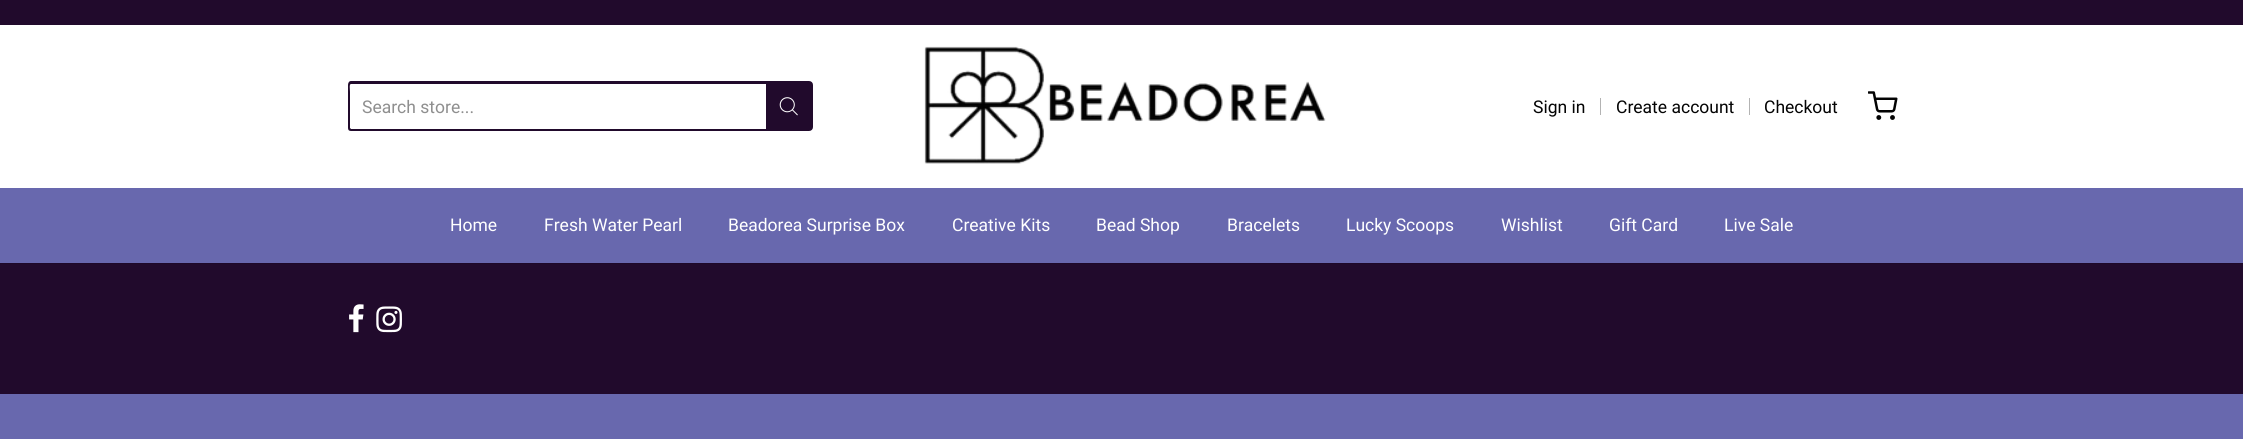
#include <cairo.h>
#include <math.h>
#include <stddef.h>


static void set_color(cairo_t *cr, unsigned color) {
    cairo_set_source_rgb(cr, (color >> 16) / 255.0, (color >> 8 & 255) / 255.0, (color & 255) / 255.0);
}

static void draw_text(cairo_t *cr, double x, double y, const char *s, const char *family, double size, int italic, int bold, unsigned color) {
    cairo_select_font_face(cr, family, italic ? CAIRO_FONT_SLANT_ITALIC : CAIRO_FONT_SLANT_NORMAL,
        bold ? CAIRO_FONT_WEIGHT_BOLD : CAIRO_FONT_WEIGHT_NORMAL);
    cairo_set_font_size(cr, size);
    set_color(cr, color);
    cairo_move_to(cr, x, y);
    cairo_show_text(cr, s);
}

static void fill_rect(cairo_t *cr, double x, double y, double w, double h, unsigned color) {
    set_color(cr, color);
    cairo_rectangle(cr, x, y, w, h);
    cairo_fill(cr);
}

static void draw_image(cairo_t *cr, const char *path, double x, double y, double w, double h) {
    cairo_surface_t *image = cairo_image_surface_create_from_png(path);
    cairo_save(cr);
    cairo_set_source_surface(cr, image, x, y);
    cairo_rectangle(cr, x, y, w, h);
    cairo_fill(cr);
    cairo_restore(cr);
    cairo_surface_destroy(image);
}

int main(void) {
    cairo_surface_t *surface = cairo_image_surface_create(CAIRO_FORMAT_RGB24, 2243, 439);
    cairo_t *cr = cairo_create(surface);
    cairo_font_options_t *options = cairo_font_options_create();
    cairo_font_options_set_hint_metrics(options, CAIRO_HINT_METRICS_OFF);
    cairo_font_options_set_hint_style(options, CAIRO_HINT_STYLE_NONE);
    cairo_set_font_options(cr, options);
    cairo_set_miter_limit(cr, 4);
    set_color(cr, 0x210A2C);
    cairo_paint(cr);
    cairo_set_source_rgba(cr, 0, 0, 0, 0.08);
    cairo_rectangle(cr, 0, 263, 2243, 1);
    cairo_fill(cr);
    fill_rect(cr, 0, 25, 2243, 163, 0xFFFFFF);
    set_color(cr, 0x210A2C);
    cairo_set_fill_rule(cr, CAIRO_FILL_RULE_EVEN_ODD);
    cairo_new_path(cr);
    cairo_move_to(cr, 351, 81);
    cairo_line_to(cr, 766, 81);
    cairo_line_to(cr, 766, 131);
    cairo_line_to(cr, 351, 131);
    cairo_curve_to(cr, 349, 131, 348, 130, 348, 128);
    cairo_line_to(cr, 348, 85);
    cairo_curve_to(cr, 348, 83, 349, 81, 351, 81);
    cairo_close_path(cr);
    cairo_move_to(cr, 351, 84);
    cairo_line_to(cr, 766, 84);
    cairo_line_to(cr, 766, 129);
    cairo_line_to(cr, 351, 129);
    cairo_line_to(cr, 350, 128);
    cairo_line_to(cr, 350, 92);
    cairo_curve_to(cr, 350, 89, 349, 84, 351, 84);
    cairo_close_path(cr);
    cairo_fill(cr);
    draw_text(cr, 362, 113, "Search store...", "Roboto", 17.5, 0, 0, 0x8F8F8F);
    set_color(cr, 0x210A2C);
    cairo_new_path(cr);
    cairo_move_to(cr, 767.5, 82.5);
    cairo_line_to(cr, 809, 82.5);
    cairo_curve_to(cr, 810.5, 82.5, 811.5, 83.5, 811.5, 85);
    cairo_line_to(cr, 811.5, 127);
    cairo_curve_to(cr, 811.5, 128.5, 810.5, 129.5, 809, 129.5);
    cairo_line_to(cr, 767.5, 129.5);
    cairo_close_path(cr);
    cairo_fill_preserve(cr);
    cairo_set_line_width(cr, 3);
    cairo_stroke(cr);
    draw_image(cr, "assets/img1.png", 779, 97, 19, 19);
    draw_image(cr, "assets/img2.png", 924, 46, 402, 118);
    draw_text(cr, 1533, 113, "Sign in", "Roboto", 17.5, 0, 0, 0x030303);
    fill_rect(cr, 1600, 98, 1, 17, 0xB3B3B3);
    draw_text(cr, 1616, 113, "Create account", "Roboto", 17.5, 0, 0, 0x030303);
    fill_rect(cr, 1749, 98, 1, 17, 0xB3B3B3);
    draw_text(cr, 1764, 113, "Checkout", "Roboto", 17.5, 0, 0, 0x030303);
    draw_image(cr, "assets/img3.png", 1868, 91, 30, 29);
    fill_rect(cr, 0, 188, 2243, 75, 0x6868AE);
    draw_text(cr, 450, 231, "Home", "Roboto", 17.5, 0, 0, 0xFFFFFF);
    draw_text(cr, 544, 231, "Fresh Water Pearl", "Roboto", 17.5, 0, 0, 0xFFFFFF);
    draw_text(cr, 728, 231, "Beadorea Surprise Box", "Roboto", 17.5, 0, 0, 0xFFFFFF);
    draw_text(cr, 952, 231, "Creative Kits", "Roboto", 17.5, 0, 0, 0xFFFFFF);
    draw_text(cr, 1096, 231, "Bead Shop", "Roboto", 17.5, 0, 0, 0xFFFFFF);
    draw_text(cr, 1227, 231, "Bracelets", "Roboto", 17.5, 0, 0, 0xFFFFFF);
    draw_text(cr, 1346, 231, "Lucky Scoops", "Roboto", 17.5, 0, 0, 0xFFFFFF);
    draw_text(cr, 1501, 231, "Wishlist", "Roboto", 17.5, 0, 0, 0xFFFFFF);
    draw_text(cr, 1609, 231, "Gift Card", "Roboto", 17.5, 0, 0, 0xFFFFFF);
    draw_text(cr, 1724, 231, "Live Sale", "Roboto", 17.5, 0, 0, 0xFFFFFF);
    draw_image(cr, "assets/img4.png", 349, 304, 15, 29);
    draw_image(cr, "assets/img5.png", 376, 306, 26, 27);
    fill_rect(cr, 0, 394, 2243, 45, 0x6868AE);
    cairo_surface_write_to_png(surface, "output.png");
    cairo_font_options_destroy(options);
    cairo_destroy(cr);
    cairo_surface_destroy(surface);
    return 0;
}
